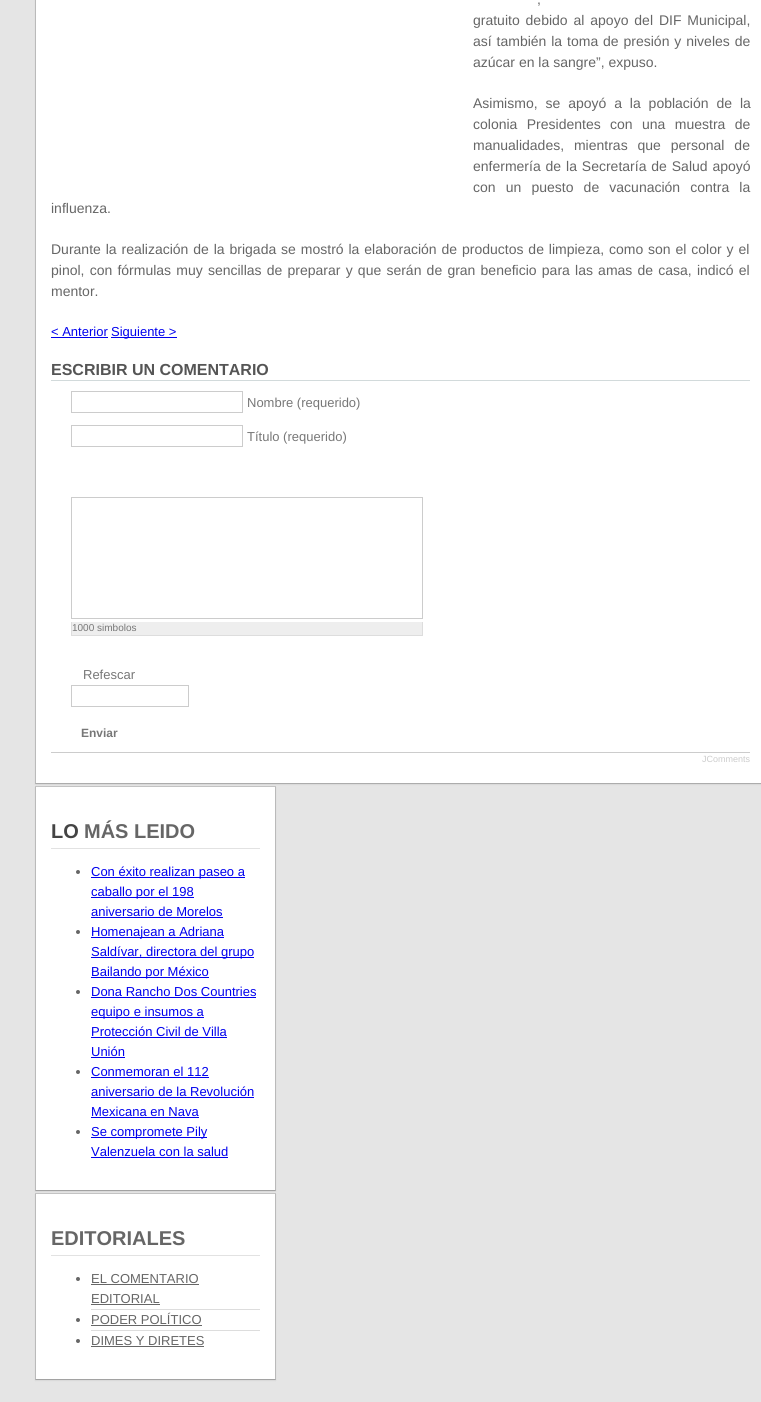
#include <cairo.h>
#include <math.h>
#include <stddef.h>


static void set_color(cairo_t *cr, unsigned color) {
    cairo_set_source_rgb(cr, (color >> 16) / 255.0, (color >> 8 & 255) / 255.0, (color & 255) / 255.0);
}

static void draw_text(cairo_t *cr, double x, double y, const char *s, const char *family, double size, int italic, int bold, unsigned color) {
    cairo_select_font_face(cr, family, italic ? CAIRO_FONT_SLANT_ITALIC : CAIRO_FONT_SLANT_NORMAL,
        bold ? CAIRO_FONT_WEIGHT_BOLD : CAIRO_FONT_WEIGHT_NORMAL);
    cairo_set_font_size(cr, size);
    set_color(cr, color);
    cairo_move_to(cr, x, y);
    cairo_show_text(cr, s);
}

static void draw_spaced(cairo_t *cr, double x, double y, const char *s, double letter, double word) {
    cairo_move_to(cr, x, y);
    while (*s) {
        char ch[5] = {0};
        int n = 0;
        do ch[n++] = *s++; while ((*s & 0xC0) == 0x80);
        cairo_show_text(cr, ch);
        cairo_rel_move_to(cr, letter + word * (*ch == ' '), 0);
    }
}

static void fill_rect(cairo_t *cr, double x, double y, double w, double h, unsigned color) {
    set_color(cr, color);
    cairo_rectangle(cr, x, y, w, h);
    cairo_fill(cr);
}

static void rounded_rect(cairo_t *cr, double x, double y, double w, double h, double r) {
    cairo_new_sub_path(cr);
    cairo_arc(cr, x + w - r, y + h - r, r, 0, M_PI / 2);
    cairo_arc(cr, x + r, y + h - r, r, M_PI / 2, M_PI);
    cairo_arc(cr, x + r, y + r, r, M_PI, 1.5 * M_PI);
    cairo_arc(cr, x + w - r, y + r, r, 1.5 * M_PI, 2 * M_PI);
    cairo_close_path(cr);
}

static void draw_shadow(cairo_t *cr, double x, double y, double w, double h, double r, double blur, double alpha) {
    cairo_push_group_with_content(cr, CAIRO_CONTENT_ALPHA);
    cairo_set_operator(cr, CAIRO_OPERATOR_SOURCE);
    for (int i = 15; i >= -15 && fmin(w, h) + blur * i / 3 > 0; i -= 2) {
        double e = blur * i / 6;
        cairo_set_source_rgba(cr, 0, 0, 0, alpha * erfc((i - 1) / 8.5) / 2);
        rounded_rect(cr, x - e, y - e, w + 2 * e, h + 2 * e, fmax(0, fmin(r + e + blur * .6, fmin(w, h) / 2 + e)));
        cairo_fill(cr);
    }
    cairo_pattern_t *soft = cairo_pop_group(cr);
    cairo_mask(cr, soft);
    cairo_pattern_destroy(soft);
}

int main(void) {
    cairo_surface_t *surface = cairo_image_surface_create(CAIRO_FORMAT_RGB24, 761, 1402);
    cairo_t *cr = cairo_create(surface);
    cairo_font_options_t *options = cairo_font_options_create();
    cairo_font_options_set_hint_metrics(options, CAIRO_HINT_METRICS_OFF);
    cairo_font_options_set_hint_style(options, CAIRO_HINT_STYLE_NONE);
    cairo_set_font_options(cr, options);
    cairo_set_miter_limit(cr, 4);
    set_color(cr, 0xE5E5E5);
    cairo_paint(cr);
    set_color(cr, 0x000000);
    draw_shadow(cr, 35, -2, 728, 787, 0, 0.5, 0.06);
    fill_rect(cr, 36, 0, 725, 783, 0xFFFFFF);
    set_color(cr, 0xACACAC);
    cairo_new_path(cr);
    cairo_move_to(cr, 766, 784);
    cairo_line_to(cr, 35, 784);
    cairo_line_to(cr, 36, 783);
    cairo_line_to(cr, 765, 783);
    cairo_close_path(cr);
    cairo_fill(cr);
    cairo_set_source_rgba(cr, 0, 0, 0, 0.15);
    cairo_new_path(cr);
    cairo_move_to(cr, 35, 784);
    cairo_line_to(cr, 35, -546);
    cairo_line_to(cr, 36, -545);
    cairo_line_to(cr, 36, 783);
    cairo_close_path(cr);
    cairo_fill(cr);
    cairo_select_font_face(cr, "Liberation Sans", CAIRO_FONT_SLANT_NORMAL, CAIRO_FONT_WEIGHT_NORMAL);
    cairo_set_font_size(cr, 14);
    set_color(cr, 0x666666);
    draw_spaced(cr, 537, 4, ",", 0, 4);
    draw_spaced(cr, 473, 25, "gratuito debido al apoyo del DIF Municipal,", 0, 2);
    draw_spaced(cr, 473, 46, "así también la toma de presión y niveles de", 0, 1);
    draw_text(cr, 473, 67, "azúcar en la sangre”, expuso.", "Liberation Sans", 14, 0, 0, 0x666666);
    draw_spaced(cr, 473, 108, "Asimismo, se apoyó a la población de la", 0, 4);
    draw_spaced(cr, 473, 129, "colonia Presidentes con una muestra de", 0, 5.5);
    draw_spaced(cr, 473, 150, "manualidades, mientras que personal de", 0, 6);
    draw_spaced(cr, 473, 171, "enfermería de la Secretaría de Salud apoyó", 0, 1);
    draw_spaced(cr, 473, 192, "con un puesto de vacunación contra la", 0, 6.25);
    draw_text(cr, 51, 213, "influenza.", "Liberation Sans", 14, 0, 0, 0x666666);
    draw_spaced(cr, 51, 254, "Durante la realización de la brigada se mostró la elaboración de productos de limpieza, como son el color y el", 0, 1);
    draw_spaced(cr, 51, 275, "pinol, con fórmulas muy sencillas de preparar y que serán de gran beneficio para las amas de casa, indicó el", 0, 1.3);
    draw_text(cr, 51, 296, "mentor.", "Liberation Sans", 14, 0, 0, 0x666666);
    draw_text(cr, 51, 336, "< Anterior", "Liberation Sans", 13, 0, 0, 0x0000EE);
    fill_rect(cr, 51, 337, 57, 1, 0x0000EE);
    fill_rect(cr, 111, 337, 66, 1, 0x0000EE);
    draw_text(cr, 111, 336, "Siguiente >", "Liberation Sans", 13, 0, 0, 0x0000EE);
    fill_rect(cr, 51, 380, 699, 1, 0xD2DADB);
    draw_text(cr, 51, 375, "ESCRIBIR UN COMENTARIO", "Liberation Sans", 16, 0, 1, 0x555555);
    cairo_rectangle(cr, 71.5, 391.5, 171, 21);
    set_color(cr, 0xCCCCCC);
    cairo_set_line_width(cr, 1);
    cairo_stroke(cr);
    draw_text(cr, 247, 407, "Nombre (requerido)", "Liberation Sans", 13, 0, 0, 0x777777);
    cairo_rectangle(cr, 71.5, 425.5, 171, 21);
    set_color(cr, 0xCCCCCC);
    cairo_stroke(cr);
    draw_text(cr, 247, 441, "Título (requerido)", "Liberation Sans", 13, 0, 0, 0x777777);
    cairo_rectangle(cr, 71.5, 497.5, 351, 121);
    set_color(cr, 0xCCCCCC);
    cairo_stroke(cr);
    fill_rect(cr, 72, 622, 350, 13, 0xEEEEEE);
    fill_rect(cr, 422, 622, 1, 14, 0xDDDDDD);
    fill_rect(cr, 71, 635, 352, 1, 0xDDDDDD);
    fill_rect(cr, 71, 622, 1, 14, 0xDDDDDD);
    draw_text(cr, 72, 631, "1000 simbolos", "Liberation Sans", 10, 0, 0, 0x777777);
    draw_text(cr, 83, 679, "Refescar", "Liberation Sans", 13, 0, 0, 0x777777);
    cairo_rectangle(cr, 71.5, 685.5, 117, 21);
    set_color(cr, 0xCCCCCC);
    cairo_stroke(cr);
    draw_text(cr, 81, 737, "Enviar", "Liberation Sans", 12, 0, 1, 0x777777);
    fill_rect(cr, 51, 752, 699, 1, 0xCCCCCC);
    draw_text(cr, 702, 762, "JComments", "Liberation Sans", 9, 0, 0, 0xCCCCCC);
    set_color(cr, 0x000000);
    draw_shadow(cr, 35, 787, 241, 405, 0, 0.5, 0.06);
    fill_rect(cr, 36, 787, 239, 403, 0xFFFFFF);
    set_color(cr, 0xC3C3C3);
    cairo_new_path(cr);
    cairo_move_to(cr, 35, 786);
    cairo_line_to(cr, 276, 786);
    cairo_line_to(cr, 275, 787);
    cairo_line_to(cr, 36, 787);
    cairo_close_path(cr);
    cairo_fill(cr);
    cairo_set_source_rgba(cr, 0, 0, 0, 0.15);
    cairo_new_path(cr);
    cairo_move_to(cr, 276, 786);
    cairo_line_to(cr, 276, 1191);
    cairo_line_to(cr, 275, 1190);
    cairo_line_to(cr, 275, 787);
    cairo_close_path(cr);
    cairo_fill(cr);
    cairo_set_source_rgba(cr, 0, 0, 0, 0.25);
    cairo_new_path(cr);
    cairo_move_to(cr, 276, 1191);
    cairo_line_to(cr, 35, 1191);
    cairo_line_to(cr, 36, 1190);
    cairo_line_to(cr, 275, 1190);
    cairo_close_path(cr);
    cairo_fill(cr);
    cairo_set_source_rgba(cr, 0, 0, 0, 0.15);
    cairo_new_path(cr);
    cairo_move_to(cr, 35, 1191);
    cairo_line_to(cr, 35, 786);
    cairo_line_to(cr, 36, 787);
    cairo_line_to(cr, 36, 1190);
    cairo_close_path(cr);
    cairo_fill(cr);
    fill_rect(cr, 51, 848, 209, 1, 0xE2E2E2);
    draw_text(cr, 51, 838, "LO", "Liberation Sans", 20, 0, 1, 0x444444);
    draw_text(cr, 84, 838, "MÁS LEIDO", "Liberation Sans", 20, 0, 1, 0x666666);
    cairo_new_path(cr);
    cairo_arc(cr, 78, 872, 2, 0, 2 * M_PI);
    cairo_fill(cr);
    fill_rect(cr, 91, 877, 154, 1, 0x0000EE);
    draw_text(cr, 91, 876, "Con éxito realizan paseo a", "Liberation Sans", 13, 0, 0, 0x0000EE);
    fill_rect(cr, 91, 897, 103, 1, 0x0000EE);
    draw_text(cr, 91, 896, "caballo por el 198", "Liberation Sans", 13, 0, 0, 0x0000EE);
    draw_text(cr, 91, 916, "aniversario de Morelos", "Liberation Sans", 13, 0, 0, 0x0000EE);
    fill_rect(cr, 91, 917, 132, 1, 0x0000EE);
    set_color(cr, 0x666666);
    cairo_new_path(cr);
    cairo_arc(cr, 78, 932, 2, 0, 2 * M_PI);
    cairo_fill(cr);
    fill_rect(cr, 91, 937, 133, 1, 0x0000EE);
    draw_text(cr, 91, 936, "Homenajean a Adriana", "Liberation Sans", 13, 0, 0, 0x0000EE);
    fill_rect(cr, 91, 957, 163, 1, 0x0000EE);
    draw_text(cr, 91, 956, "Saldívar, directora del grupo", "Liberation Sans", 13, 0, 0, 0x0000EE);
    fill_rect(cr, 91, 977, 118, 1, 0x0000EE);
    draw_text(cr, 91, 976, "Bailando por México", "Liberation Sans", 13, 0, 0, 0x0000EE);
    set_color(cr, 0x666666);
    cairo_new_path(cr);
    cairo_arc(cr, 78, 992, 2, 0, 2 * M_PI);
    cairo_fill(cr);
    draw_text(cr, 91, 996, "Dona Rancho Dos Countries", "Liberation Sans", 13, 0, 0, 0x0000EE);
    fill_rect(cr, 91, 997, 165, 1, 0x0000EE);
    fill_rect(cr, 91, 1017, 113, 1, 0x0000EE);
    draw_text(cr, 91, 1016, "equipo e insumos a", "Liberation Sans", 13, 0, 0, 0x0000EE);
    draw_text(cr, 91, 1036, "Protección Civil de Villa", "Liberation Sans", 13, 0, 0, 0x0000EE);
    fill_rect(cr, 91, 1037, 136, 1, 0x0000EE);
    draw_text(cr, 91, 1056, "Unión", "Liberation Sans", 13, 0, 0, 0x0000EE);
    fill_rect(cr, 91, 1057, 34, 1, 0x0000EE);
    set_color(cr, 0x666666);
    cairo_new_path(cr);
    cairo_arc(cr, 78, 1072, 2, 0, 2 * M_PI);
    cairo_fill(cr);
    draw_text(cr, 91, 1076, "Conmemoran el 112", "Liberation Sans", 13, 0, 0, 0x0000EE);
    fill_rect(cr, 91, 1077, 118, 1, 0x0000EE);
    draw_text(cr, 91, 1096, "aniversario de la Revolución", "Liberation Sans", 13, 0, 0, 0x0000EE);
    fill_rect(cr, 91, 1097, 163, 1, 0x0000EE);
    draw_text(cr, 91, 1116, "Mexicana en Nava", "Liberation Sans", 13, 0, 0, 0x0000EE);
    fill_rect(cr, 91, 1117, 108, 1, 0x0000EE);
    set_color(cr, 0x666666);
    cairo_new_path(cr);
    cairo_arc(cr, 78, 1132, 2, 0, 2 * M_PI);
    cairo_fill(cr);
    fill_rect(cr, 91, 1137, 116, 1, 0x0000EE);
    draw_text(cr, 91, 1136, "Se compromete Pily", "Liberation Sans", 13, 0, 0, 0x0000EE);
    draw_text(cr, 91, 1156, "Valenzuela con la salud", "Liberation Sans", 13, 0, 0, 0x0000EE);
    fill_rect(cr, 91, 1157, 137, 1, 0x0000EE);
    set_color(cr, 0x000000);
    draw_shadow(cr, 35, 1194, 241, 187, 0, 0.5, 0.06);
    fill_rect(cr, 36, 1194, 239, 185, 0xFFFFFF);
    set_color(cr, 0xC3C3C3);
    cairo_new_path(cr);
    cairo_move_to(cr, 35, 1193);
    cairo_line_to(cr, 276, 1193);
    cairo_line_to(cr, 275, 1194);
    cairo_line_to(cr, 36, 1194);
    cairo_close_path(cr);
    cairo_fill(cr);
    cairo_set_source_rgba(cr, 0, 0, 0, 0.15);
    cairo_new_path(cr);
    cairo_move_to(cr, 276, 1193);
    cairo_line_to(cr, 276, 1380);
    cairo_line_to(cr, 275, 1379);
    cairo_line_to(cr, 275, 1194);
    cairo_close_path(cr);
    cairo_fill(cr);
    cairo_set_source_rgba(cr, 0, 0, 0, 0.25);
    cairo_new_path(cr);
    cairo_move_to(cr, 276, 1380);
    cairo_line_to(cr, 35, 1380);
    cairo_line_to(cr, 36, 1379);
    cairo_line_to(cr, 275, 1379);
    cairo_close_path(cr);
    cairo_fill(cr);
    cairo_set_source_rgba(cr, 0, 0, 0, 0.15);
    cairo_new_path(cr);
    cairo_move_to(cr, 35, 1380);
    cairo_line_to(cr, 35, 1193);
    cairo_line_to(cr, 36, 1194);
    cairo_line_to(cr, 36, 1379);
    cairo_close_path(cr);
    cairo_fill(cr);
    fill_rect(cr, 51, 1255, 209, 1, 0xE2E2E2);
    draw_text(cr, 51, 1245, "EDITORIALES", "Liberation Sans", 20, 0, 1, 0x666666);
    cairo_new_path(cr);
    cairo_arc(cr, 78, 1279, 2, 0, 2 * M_PI);
    cairo_fill(cr);
    draw_text(cr, 91, 1283, "EL COMENTARIO", "Liberation Sans", 13, 0, 0, 0x666666);
    fill_rect(cr, 91, 1284, 108, 1, 0x666666);
    draw_text(cr, 91, 1303, "EDITORIAL", "Liberation Sans", 13, 0, 0, 0x666666);
    fill_rect(cr, 91, 1304, 69, 1, 0x666666);
    fill_rect(cr, 91, 1309, 169, 1, 0xDDDDDD);
    set_color(cr, 0x666666);
    cairo_new_path(cr);
    cairo_arc(cr, 78, 1320, 2, 0, 2 * M_PI);
    cairo_fill(cr);
    draw_text(cr, 91, 1324, "PODER POLÍTICO", "Liberation Sans", 13, 0, 0, 0x666666);
    fill_rect(cr, 91, 1325, 111, 1, 0x666666);
    fill_rect(cr, 91, 1330, 169, 1, 0xDDDDDD);
    set_color(cr, 0x666666);
    cairo_new_path(cr);
    cairo_arc(cr, 78, 1341, 2, 0, 2 * M_PI);
    cairo_fill(cr);
    draw_text(cr, 91, 1345, "DIMES Y DIRETES", "Liberation Sans", 13, 0, 0, 0x666666);
    fill_rect(cr, 91, 1346, 113, 1, 0x666666);
    cairo_surface_write_to_png(surface, "output.png");
    cairo_font_options_destroy(options);
    cairo_destroy(cr);
    cairo_surface_destroy(surface);
    return 0;
}
